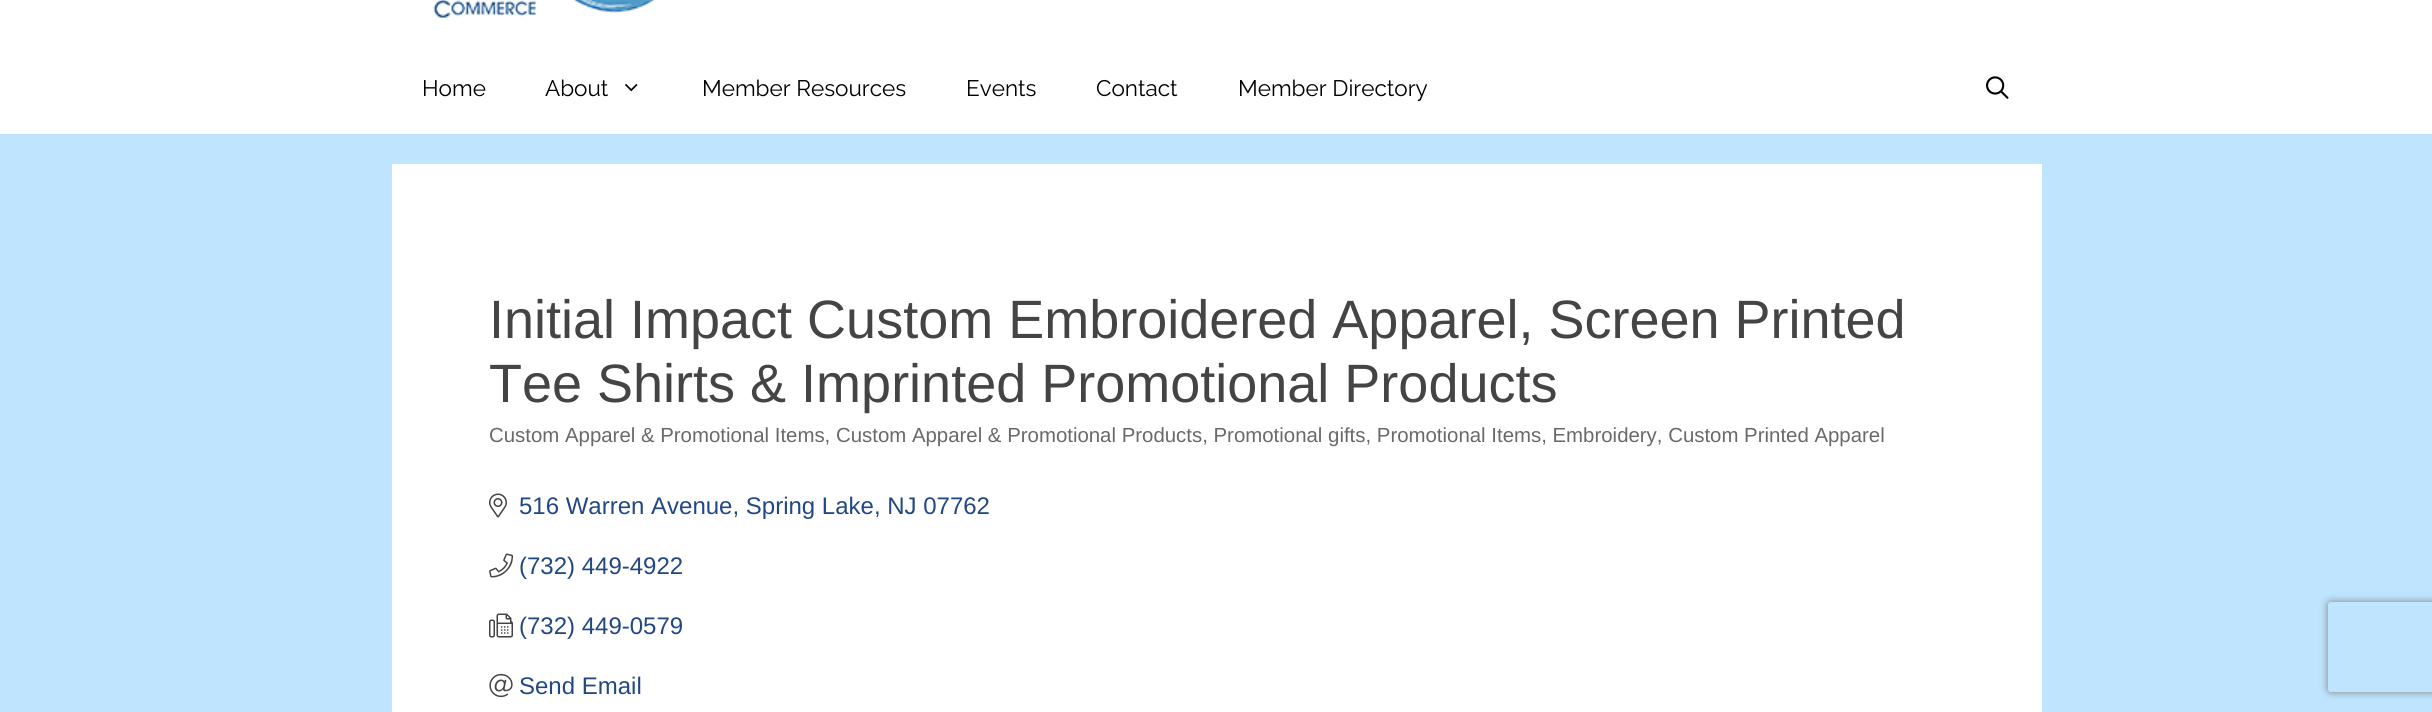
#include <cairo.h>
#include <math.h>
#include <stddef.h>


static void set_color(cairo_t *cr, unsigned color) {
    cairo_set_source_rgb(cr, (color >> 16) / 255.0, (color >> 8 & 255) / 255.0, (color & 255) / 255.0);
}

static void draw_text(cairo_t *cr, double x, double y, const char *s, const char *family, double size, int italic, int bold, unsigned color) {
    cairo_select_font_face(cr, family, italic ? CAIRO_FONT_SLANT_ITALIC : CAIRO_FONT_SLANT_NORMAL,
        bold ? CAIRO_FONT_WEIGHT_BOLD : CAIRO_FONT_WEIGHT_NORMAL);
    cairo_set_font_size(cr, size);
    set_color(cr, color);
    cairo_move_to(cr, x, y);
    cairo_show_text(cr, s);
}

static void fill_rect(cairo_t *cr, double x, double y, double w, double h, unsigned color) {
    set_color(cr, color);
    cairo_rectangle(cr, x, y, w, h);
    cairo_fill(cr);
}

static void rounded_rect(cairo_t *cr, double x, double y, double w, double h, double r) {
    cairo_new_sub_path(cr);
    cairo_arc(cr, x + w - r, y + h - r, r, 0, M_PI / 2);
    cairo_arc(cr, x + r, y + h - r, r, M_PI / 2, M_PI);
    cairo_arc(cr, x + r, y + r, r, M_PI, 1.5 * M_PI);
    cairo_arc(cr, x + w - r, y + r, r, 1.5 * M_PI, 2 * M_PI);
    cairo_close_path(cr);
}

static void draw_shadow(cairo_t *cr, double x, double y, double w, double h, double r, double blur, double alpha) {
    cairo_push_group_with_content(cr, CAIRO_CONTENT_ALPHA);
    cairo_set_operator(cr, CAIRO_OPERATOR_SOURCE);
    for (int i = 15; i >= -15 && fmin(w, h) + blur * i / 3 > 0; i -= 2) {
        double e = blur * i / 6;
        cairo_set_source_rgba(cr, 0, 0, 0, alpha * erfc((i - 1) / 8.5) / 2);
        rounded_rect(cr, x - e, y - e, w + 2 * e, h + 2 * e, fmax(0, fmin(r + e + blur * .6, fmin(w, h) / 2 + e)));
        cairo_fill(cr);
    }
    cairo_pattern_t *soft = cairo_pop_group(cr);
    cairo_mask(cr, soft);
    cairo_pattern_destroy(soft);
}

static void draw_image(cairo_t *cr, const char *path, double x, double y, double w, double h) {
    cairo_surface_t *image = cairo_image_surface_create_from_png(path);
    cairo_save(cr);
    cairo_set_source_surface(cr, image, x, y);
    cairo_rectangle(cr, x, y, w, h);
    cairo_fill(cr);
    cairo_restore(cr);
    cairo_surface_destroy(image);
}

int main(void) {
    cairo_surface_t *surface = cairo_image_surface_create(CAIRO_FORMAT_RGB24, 2432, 712);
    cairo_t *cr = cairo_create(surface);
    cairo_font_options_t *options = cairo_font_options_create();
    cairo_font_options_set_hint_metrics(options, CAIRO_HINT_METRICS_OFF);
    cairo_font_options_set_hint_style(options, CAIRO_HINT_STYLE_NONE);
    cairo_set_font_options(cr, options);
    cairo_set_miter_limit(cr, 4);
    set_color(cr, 0xBEE4FE);
    cairo_paint(cr);
    fill_rect(cr, 0, 0, 2432, 134, 0xFFFFFF);
    draw_image(cr, "assets/img1.png", 433, 0, 222, 18);
    draw_text(cr, 422, 96, "Home", "Raleway", 22.5, 0, 0, 0x000000);
    draw_text(cr, 545, 96, "About", "Raleway", 22.5, 0, 0, 0x000000);
    draw_image(cr, "assets/img2.png", 625, 84, 13, 8);
    draw_text(cr, 702, 96, "Member Resources", "Raleway", 22.5, 0, 0, 0x000000);
    draw_text(cr, 966, 96, "Events", "Raleway", 22.5, 0, 0, 0x000000);
    draw_text(cr, 1096, 96, "Contact", "Raleway", 22.5, 0, 0, 0x000000);
    draw_text(cr, 1238, 96, "Member Directory", "Raleway", 22.5, 0, 0, 0x000000);
    draw_image(cr, "assets/img3.png", 1986, 76, 23, 23);
    fill_rect(cr, 392, 164, 1650, 548, 0xFFFFFF);
    draw_text(cr, 489, 338, "Initial Impact Custom Embroidered Apparel, Screen Printed", "Liberation Sans", 54, 0, 0, 0x444444);
    draw_text(cr, 489, 402, "Tee Shirts & Imprinted Promotional Products", "Liberation Sans", 54, 0, 0, 0x444444);
    draw_text(cr, 489, 442, "Custom Apparel & Promotional Items, Custom Apparel & Promotional Products, Promotional gifts, Promotional Items, Embroidery, Custom Printed Apparel", "Liberation Sans", 20.4, 0, 0, 0x696969);
    draw_image(cr, "assets/img4.png", 489, 493, 18, 25);
    draw_text(cr, 519, 514, "516 Warren Avenue, Spring Lake, NJ 07762", "Liberation Sans", 24, 0, 0, 0x224884);
    draw_image(cr, "assets/img5.png", 489, 553, 25, 25);
    draw_text(cr, 519, 574, "(732) 449-4922", "Liberation Sans", 24, 0, 0, 0x224884);
    draw_image(cr, "assets/img6.png", 489, 613, 24, 25);
    draw_text(cr, 519, 634, "(732) 449-0579", "Liberation Sans", 24, 0, 0, 0x224884);
    draw_image(cr, "assets/img7.png", 489, 673, 24, 25);
    draw_text(cr, 519, 694, "Send Email", "Liberation Sans", 24, 0, 0, 0x224884);
    cairo_save(cr);
    cairo_set_fill_rule(cr, CAIRO_FILL_RULE_EVEN_ODD);
    cairo_new_path(cr);
    cairo_move_to(cr, 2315, 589);
    cairo_line_to(cr, 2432, 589);
    cairo_line_to(cr, 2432, 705);
    cairo_line_to(cr, 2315, 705);
    cairo_close_path(cr);
    cairo_move_to(cr, 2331, 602);
    cairo_line_to(cr, 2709, 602);
    cairo_curve_to(cr, 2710.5, 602, 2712, 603.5, 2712, 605);
    cairo_line_to(cr, 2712, 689);
    cairo_curve_to(cr, 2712, 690.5, 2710.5, 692, 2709, 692);
    cairo_line_to(cr, 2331, 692);
    cairo_curve_to(cr, 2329.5, 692, 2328, 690.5, 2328, 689);
    cairo_line_to(cr, 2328, 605);
    cairo_curve_to(cr, 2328, 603.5, 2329.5, 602, 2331, 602);
    cairo_close_path(cr);
    cairo_clip(cr);
    set_color(cr, 0x808080);
    draw_shadow(cr, 2328, 602, 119, 90, 3, 4, 1);
    cairo_restore(cr);
    cairo_surface_write_to_png(surface, "output.png");
    cairo_font_options_destroy(options);
    cairo_destroy(cr);
    cairo_surface_destroy(surface);
    return 0;
}
